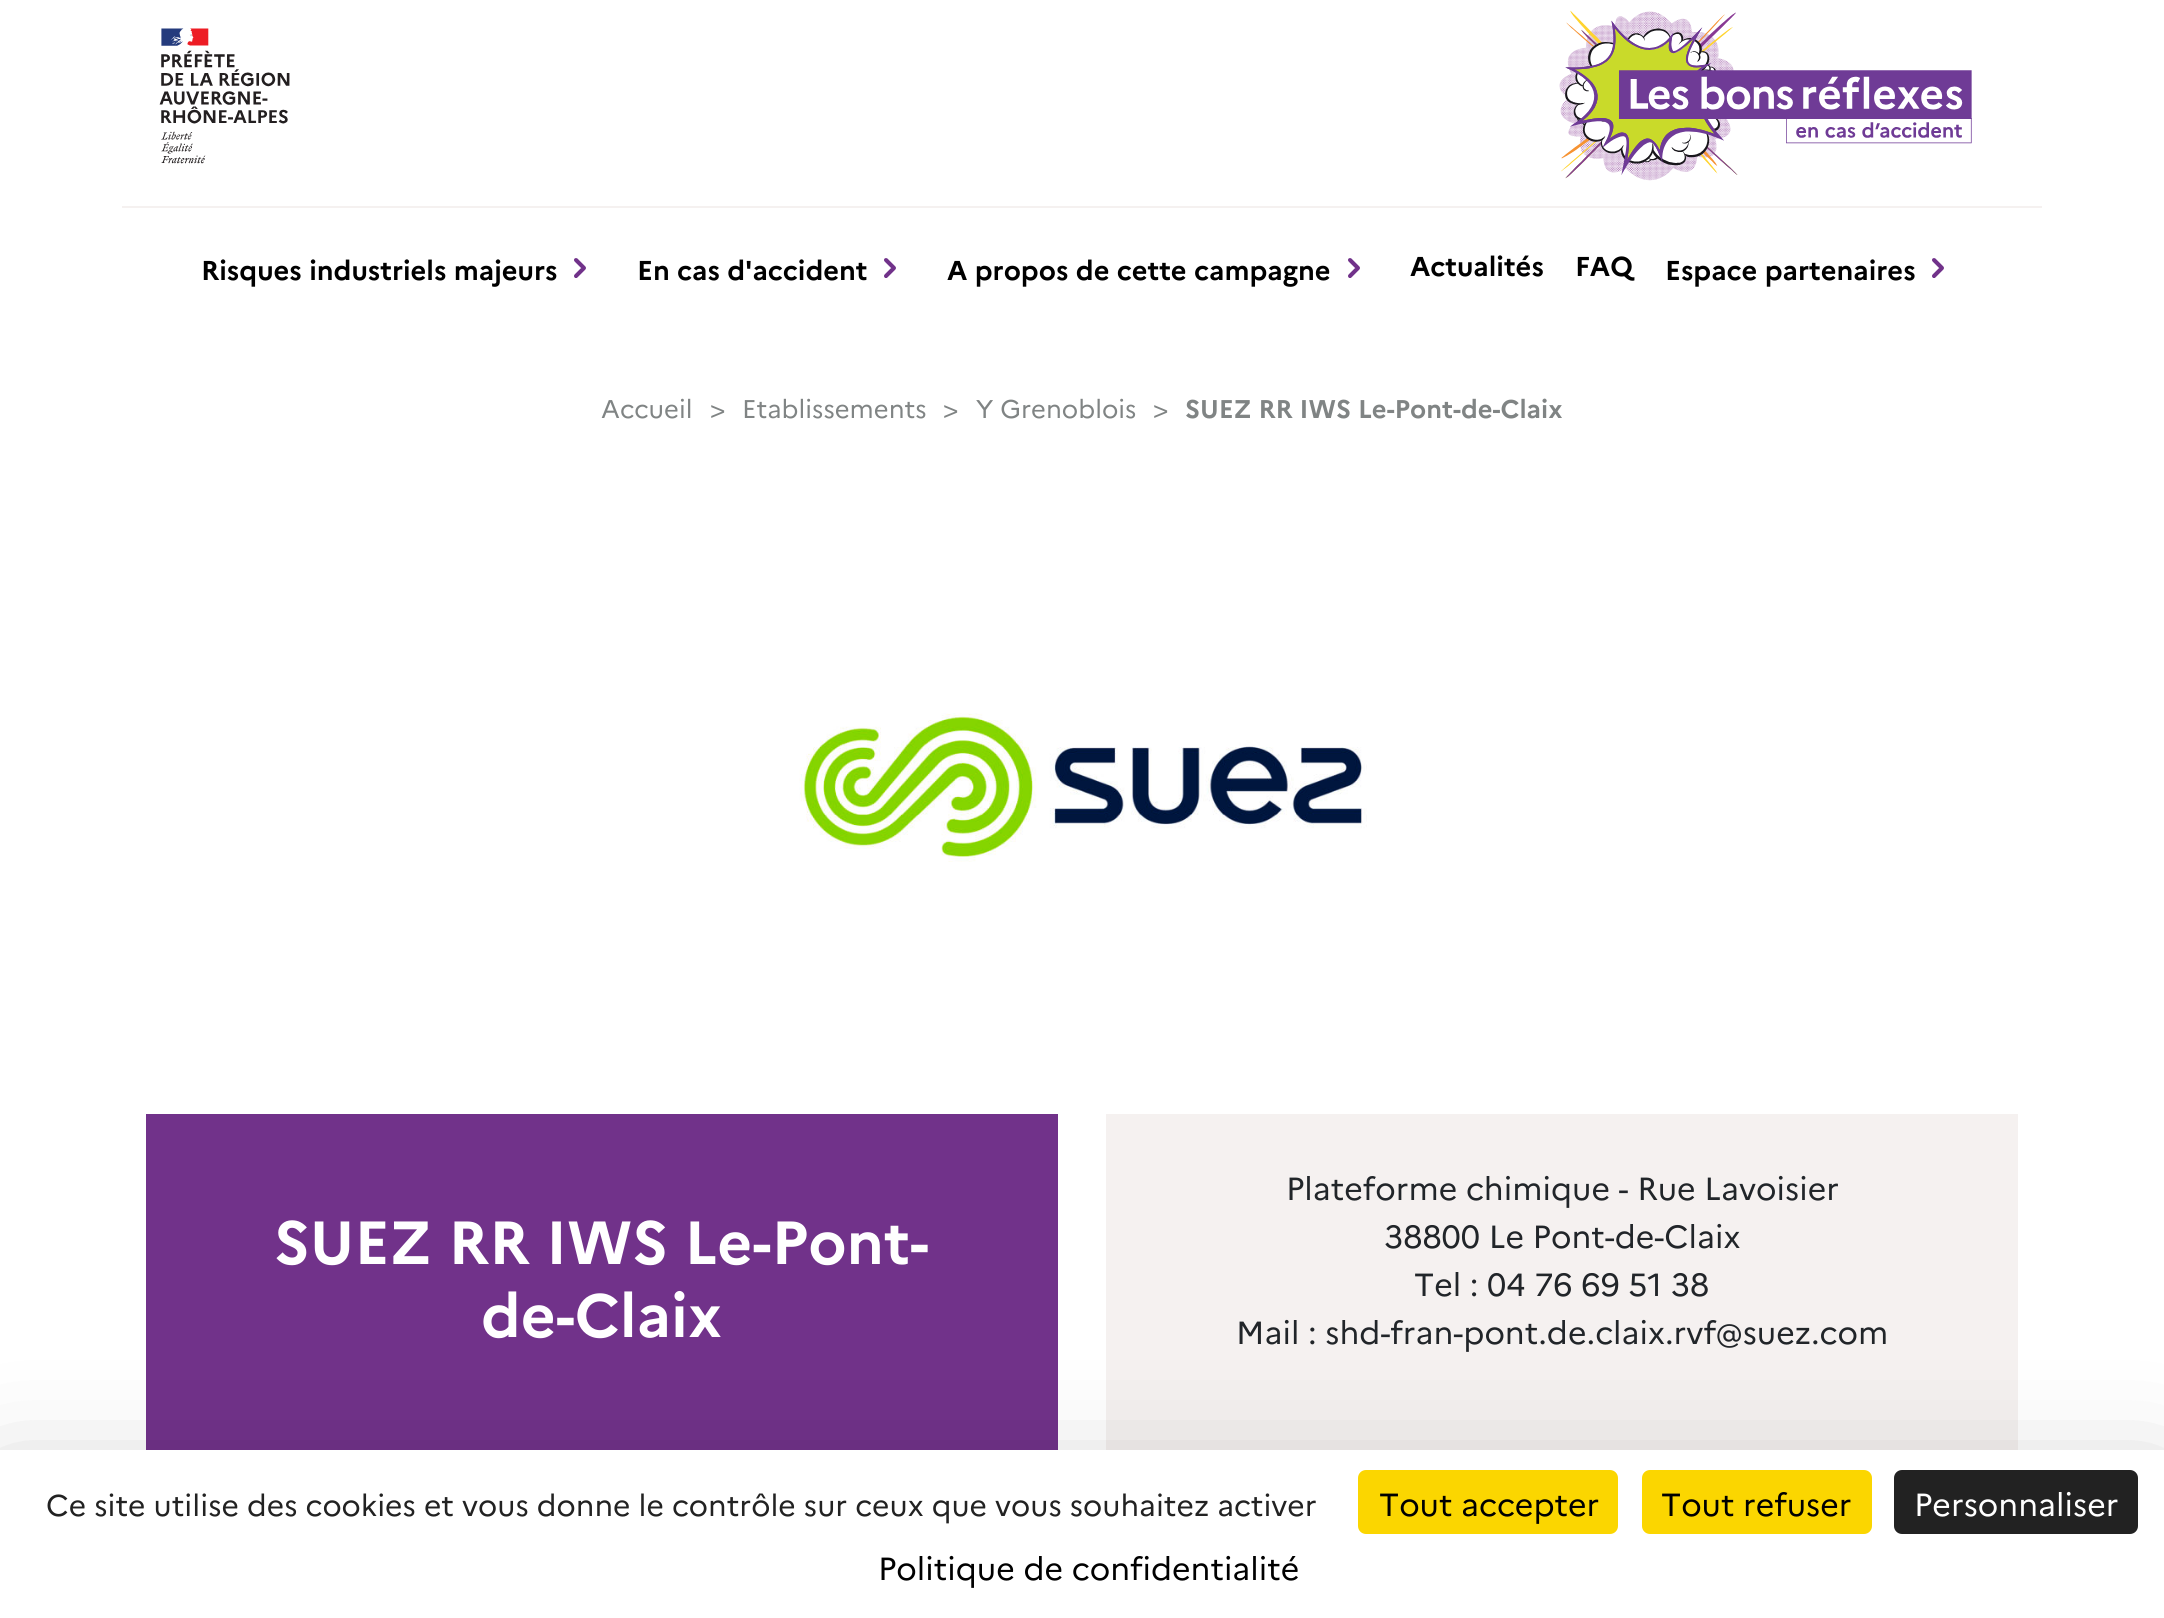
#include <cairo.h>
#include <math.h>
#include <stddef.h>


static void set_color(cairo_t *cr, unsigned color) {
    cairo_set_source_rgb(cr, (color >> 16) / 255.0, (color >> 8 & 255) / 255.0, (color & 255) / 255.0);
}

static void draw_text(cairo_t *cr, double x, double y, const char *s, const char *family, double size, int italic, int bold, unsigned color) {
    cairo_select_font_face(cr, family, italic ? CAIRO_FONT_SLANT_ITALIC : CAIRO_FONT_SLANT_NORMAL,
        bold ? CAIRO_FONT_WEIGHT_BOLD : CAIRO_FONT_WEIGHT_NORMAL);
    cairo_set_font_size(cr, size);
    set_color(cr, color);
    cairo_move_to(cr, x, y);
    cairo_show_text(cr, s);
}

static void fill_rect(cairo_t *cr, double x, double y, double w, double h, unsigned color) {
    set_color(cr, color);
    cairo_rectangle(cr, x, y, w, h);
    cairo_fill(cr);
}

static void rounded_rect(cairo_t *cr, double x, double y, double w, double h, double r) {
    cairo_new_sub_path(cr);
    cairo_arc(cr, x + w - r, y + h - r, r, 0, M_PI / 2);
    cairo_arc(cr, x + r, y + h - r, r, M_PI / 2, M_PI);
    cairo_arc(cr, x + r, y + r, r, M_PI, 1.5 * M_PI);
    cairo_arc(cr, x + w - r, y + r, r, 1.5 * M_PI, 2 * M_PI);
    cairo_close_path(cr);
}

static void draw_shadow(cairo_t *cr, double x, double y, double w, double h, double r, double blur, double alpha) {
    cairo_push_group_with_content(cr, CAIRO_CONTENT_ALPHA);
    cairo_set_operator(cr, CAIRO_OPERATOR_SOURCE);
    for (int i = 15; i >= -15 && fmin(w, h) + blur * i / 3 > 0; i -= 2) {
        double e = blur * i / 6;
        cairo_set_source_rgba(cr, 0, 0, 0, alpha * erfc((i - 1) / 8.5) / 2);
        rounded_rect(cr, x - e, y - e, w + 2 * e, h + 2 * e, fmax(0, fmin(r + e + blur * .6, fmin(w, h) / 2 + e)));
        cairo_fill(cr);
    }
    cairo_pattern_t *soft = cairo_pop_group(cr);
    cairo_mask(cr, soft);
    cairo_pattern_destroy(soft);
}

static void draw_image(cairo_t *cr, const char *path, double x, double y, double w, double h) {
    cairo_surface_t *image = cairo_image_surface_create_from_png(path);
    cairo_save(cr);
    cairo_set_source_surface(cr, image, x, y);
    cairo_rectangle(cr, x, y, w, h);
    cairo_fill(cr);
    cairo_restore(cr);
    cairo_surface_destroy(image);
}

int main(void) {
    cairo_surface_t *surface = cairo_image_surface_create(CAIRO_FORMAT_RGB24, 2164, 1618);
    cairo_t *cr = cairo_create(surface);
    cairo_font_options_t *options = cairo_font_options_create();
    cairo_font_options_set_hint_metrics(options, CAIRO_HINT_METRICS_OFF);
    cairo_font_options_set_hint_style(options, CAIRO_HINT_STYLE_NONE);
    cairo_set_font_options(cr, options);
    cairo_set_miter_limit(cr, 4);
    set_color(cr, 0xFFFFFF);
    cairo_paint(cr);
    fill_rect(cr, 122, 206, 1920, 2, 0xF5F1F0);
    draw_image(cr, "assets/img1.png", 159, 28, 131, 136);
    draw_image(cr, "assets/img2.png", 1559, 10, 413, 171);
    draw_text(cr, 201, 280, "Risques industriels majeurs", "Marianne", 27.25, 0, 1, 0x000000);
    draw_image(cr, "assets/img3.png", 574, 258, 12, 20);
    draw_text(cr, 637, 280, "En cas d'accident", "Marianne", 27.25, 0, 1, 0x000000);
    draw_image(cr, "assets/img3.png", 884, 258, 12, 20);
    draw_text(cr, 947, 280, "A propos de cette campagne", "Marianne", 27.25, 0, 1, 0x000000);
    draw_image(cr, "assets/img3.png", 1348, 258, 12, 20);
    draw_text(cr, 1410, 276, "Actualités", "Marianne", 27.25, 0, 1, 0x000000);
    draw_text(cr, 1575, 276, "FAQ", "Marianne", 27.25, 0, 1, 0x000000);
    draw_text(cr, 1665, 280, "Espace partenaires", "Marianne", 27.25, 0, 1, 0x000000);
    draw_image(cr, "assets/img3.png", 1932, 258, 12, 20);
    draw_text(cr, 601, 418, "Accueil", "Marianne", 25.6, 0, 0, 0x808484);
    draw_text(cr, 710, 418, ">", "Marianne", 25.6, 0, 0, 0x808484);
    draw_text(cr, 742, 418, "Etablissements", "Marianne", 25.6, 0, 0, 0x808484);
    draw_text(cr, 943, 418, ">", "Marianne", 25.6, 0, 0, 0x808484);
    draw_text(cr, 976, 418, "Y Grenoblois", "Marianne", 25.6, 0, 0, 0x808484);
    draw_text(cr, 1153, 418, ">", "Marianne", 25.6, 0, 0, 0x808484);
    draw_text(cr, 1185, 418, "SUEZ RR IWS Le-Pont-de-Claix", "Marianne", 25.6, 0, 1, 0x808484);
    draw_image(cr, "assets/img4.png", 799, 713, 568, 149);
    fill_rect(cr, 146, 1114, 912, 336, 0x71328A);
    draw_text(cr, 274, 1264, "SUEZ RR IWS Le-Pont-", "Marianne", 60.75, 0, 1, 0xFFFFFF);
    draw_text(cr, 481, 1337, "de-Claix", "Marianne", 60.75, 0, 1, 0xFFFFFF);
    fill_rect(cr, 1106, 1114, 912, 336, 0xF5F1F0);
    draw_text(cr, 1286, 1200, "Plateforme chimique - Rue Lavoisier", "Marianne", 32, 0, 0, 0x212529);
    draw_text(cr, 1384, 1248, "38800 Le Pont-de-Claix", "Marianne", 32, 0, 0, 0x212529);
    draw_text(cr, 1414, 1296, "Tel : 04 76 69 51 38", "Marianne", 32, 0, 0, 0x212529);
    draw_text(cr, 1236, 1344, "Mail : shd-fran-pont.de.claix.rvf@suez.com", "Marianne", 32, 0, 0, 0x212529);
    set_color(cr, 0x000000);
    draw_shadow(cr, 0, 1490, 2164, 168, 0, 60, 0.25);
    fill_rect(cr, 0, 1450, 2164, 168, 0xFFFFFF);
    draw_text(cr, 46, 1516, "Ce site utilise des cookies et vous donne le contrôle sur ceux que vous souhaitez activer", "Marianne", 30, 0, 0, 0x222222);
    set_color(cr, 0xFBD600);
    rounded_rect(cr, 1358, 1470, 260, 64, 8);
    cairo_fill(cr);
    draw_text(cr, 1379, 1516, "Tout accepter", "Marianne", 32, 0, 0, 0x000000);
    set_color(cr, 0xFBD600);
    rounded_rect(cr, 1642, 1470, 230, 64, 8);
    cairo_fill(cr);
    draw_text(cr, 1661, 1516, "Tout refuser", "Marianne", 32, 0, 0, 0x000000);
    set_color(cr, 0x222222);
    rounded_rect(cr, 1894, 1470, 244, 64, 8);
    cairo_fill(cr);
    draw_text(cr, 1914, 1516, "Personnaliser", "Marianne", 32, 0, 0, 0xFFFFFF);
    draw_text(cr, 878, 1580, "Politique de confidentialité", "Marianne", 32, 0, 0, 0x000000);
    cairo_surface_write_to_png(surface, "output.png");
    cairo_font_options_destroy(options);
    cairo_destroy(cr);
    cairo_surface_destroy(surface);
    return 0;
}
